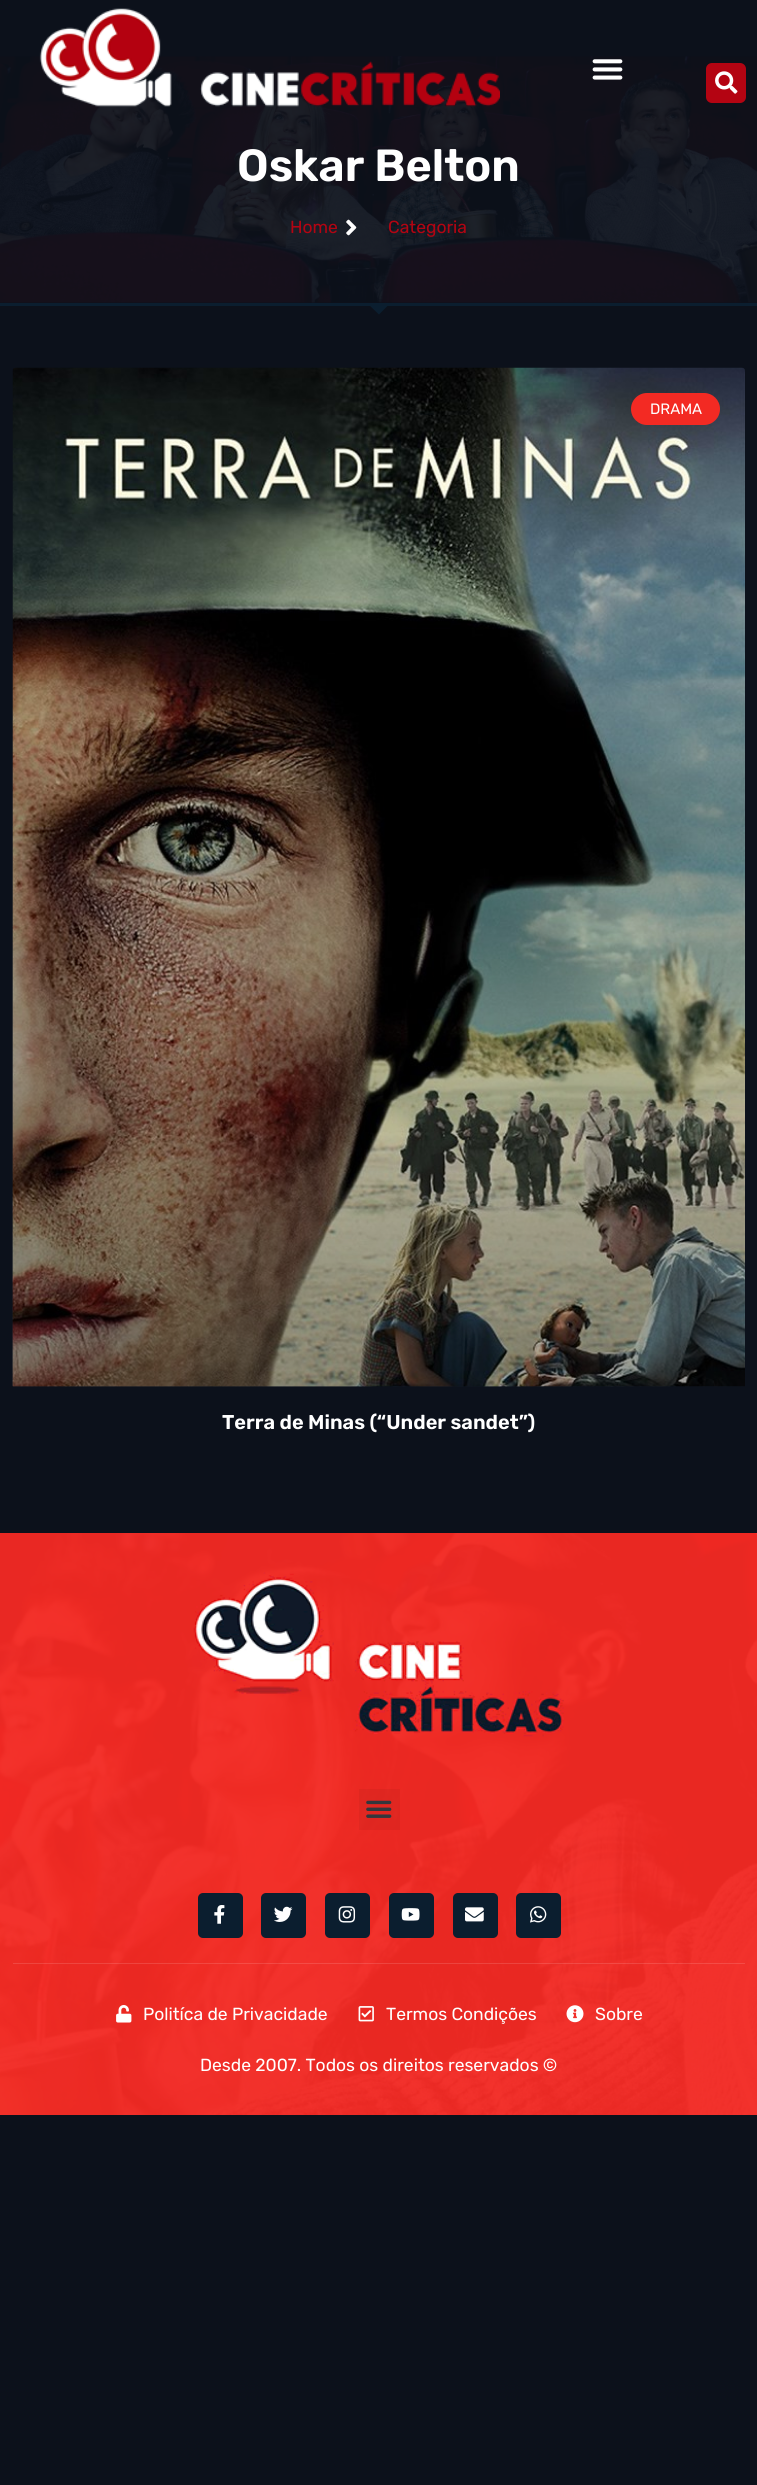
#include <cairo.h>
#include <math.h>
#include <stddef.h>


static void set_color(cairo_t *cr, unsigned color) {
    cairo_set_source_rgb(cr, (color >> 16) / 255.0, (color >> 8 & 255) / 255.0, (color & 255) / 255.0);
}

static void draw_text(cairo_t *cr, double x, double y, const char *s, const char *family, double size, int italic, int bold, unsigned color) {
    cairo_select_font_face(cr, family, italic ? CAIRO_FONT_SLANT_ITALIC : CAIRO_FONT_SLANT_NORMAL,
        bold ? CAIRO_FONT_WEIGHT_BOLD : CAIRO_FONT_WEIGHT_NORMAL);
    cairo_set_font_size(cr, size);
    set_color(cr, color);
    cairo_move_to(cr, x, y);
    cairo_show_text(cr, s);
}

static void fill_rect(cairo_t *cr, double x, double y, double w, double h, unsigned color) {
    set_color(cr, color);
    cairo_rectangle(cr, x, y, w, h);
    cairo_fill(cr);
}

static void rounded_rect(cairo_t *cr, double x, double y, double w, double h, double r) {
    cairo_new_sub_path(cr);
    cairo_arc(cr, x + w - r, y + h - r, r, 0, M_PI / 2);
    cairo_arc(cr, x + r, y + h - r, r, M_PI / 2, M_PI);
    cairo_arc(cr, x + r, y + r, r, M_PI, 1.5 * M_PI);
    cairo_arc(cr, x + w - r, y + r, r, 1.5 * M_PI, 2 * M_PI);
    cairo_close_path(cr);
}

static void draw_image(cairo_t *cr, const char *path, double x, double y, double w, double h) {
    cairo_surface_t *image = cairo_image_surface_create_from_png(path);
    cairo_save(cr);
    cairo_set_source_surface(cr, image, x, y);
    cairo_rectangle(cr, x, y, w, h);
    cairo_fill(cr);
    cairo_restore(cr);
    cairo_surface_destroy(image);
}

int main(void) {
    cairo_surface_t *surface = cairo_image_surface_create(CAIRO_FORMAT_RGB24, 757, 2485);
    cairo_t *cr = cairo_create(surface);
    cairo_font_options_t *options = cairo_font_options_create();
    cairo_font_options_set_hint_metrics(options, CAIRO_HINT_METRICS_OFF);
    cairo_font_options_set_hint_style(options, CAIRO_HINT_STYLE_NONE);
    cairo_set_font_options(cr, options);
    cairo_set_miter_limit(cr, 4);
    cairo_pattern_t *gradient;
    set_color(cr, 0x0C111B);
    cairo_paint(cr);
    draw_image(cr, "assets/img4.png", 0, 56, 757, 247);
    draw_image(cr, "assets/img1.png", 39, 8, 461, 99);
    draw_image(cr, "assets/img2.png", 592, 59, 31, 21);
    set_color(cr, 0xB40412);
    rounded_rect(cr, 706, 63, 40, 40, 6);
    cairo_fill(cr);
    draw_image(cr, "assets/img3.png", 715, 71, 23, 23);
    fill_rect(cr, 0, 303, 757, 3, 0x0B1E2F);
    draw_text(cr, 237, 181, "Oskar Belton", "Rubik SemiBold", 45, 0, 0, 0xFFFFFF);
    draw_text(cr, 290, 233, "Home", "Rubik", 17.5, 0, 0, 0xB40412);
    draw_image(cr, "assets/img5.png", 346, 219, 11, 17);
    draw_text(cr, 388, 233, "Categoria", "Rubik", 17.5, 0, 0, 0xB40412);
    set_color(cr, 0x0B1E2F);
    cairo_new_path(cr);
    cairo_move_to(cr, 379, 314.5);
    cairo_line_to(cr, 368, 304);
    cairo_line_to(cr, 389.5, 304);
    cairo_close_path(cr);
    cairo_fill(cr);
    draw_image(cr, "assets/img6.png", 12, 367, 733, 1020);
    gradient = cairo_pattern_create_linear(379, 1386, 379, 368);
    cairo_pattern_add_color_stop_rgba(gradient, 0, 0, 0, 0, 0.35);
    cairo_pattern_add_color_stop_rgba(gradient, 0.75, 0, 0, 0, 0);
    cairo_set_source(cr, gradient);
    cairo_pattern_destroy(gradient);
    cairo_rectangle(cr, 13, 670, 732, 716);
    cairo_fill(cr);
    set_color(cr, 0xF32A23);
    rounded_rect(cr, 631, 393, 89, 32, 16);
    cairo_fill(cr);
    draw_text(cr, 650, 414, "DRAMA", "Rubik", 15, 0, 0, 0xFFFFFF);
    draw_text(cr, 222, 1429, "Terra de Minas (“Under sandet”)", "Rubik SemiBold", 20, 0, 0, 0xFFFFFF);
    fill_rect(cr, 0, 1533, 757, 582, 0xF32A23);
    draw_image(cr, "assets/img7.png", 0, 1533, 757, 582);
    draw_image(cr, "assets/img8.png", 193, 1572, 371, 165);
    cairo_set_source_rgba(cr, 0, 0, 0, 0.05);
    cairo_rectangle(cr, 359, 1789, 41, 41);
    cairo_fill(cr);
    draw_image(cr, "assets/img9.png", 366, 1800, 26, 18);
    set_color(cr, 0x0B1E2F);
    rounded_rect(cr, 198, 1893, 45, 45, 5);
    cairo_fill(cr);
    draw_image(cr, "assets/img10.png", 214, 1905, 11, 19);
    rounded_rect(cr, 261, 1893, 45, 45, 5);
    cairo_fill(cr);
    draw_image(cr, "assets/img11.png", 274, 1906, 19, 16);
    rounded_rect(cr, 325, 1893, 45, 45, 5);
    cairo_fill(cr);
    draw_image(cr, "assets/img12.png", 338, 1906, 18, 17);
    rounded_rect(cr, 389, 1893, 45, 45, 5);
    cairo_fill(cr);
    draw_image(cr, "assets/img13.png", 401, 1908, 19, 13);
    rounded_rect(cr, 453, 1893, 45, 45, 5);
    cairo_fill(cr);
    draw_image(cr, "assets/img14.png", 465, 1907, 19, 15);
    rounded_rect(cr, 516, 1893, 45, 45, 5);
    cairo_fill(cr);
    draw_image(cr, "assets/img15.png", 530, 1906, 17, 17);
    cairo_set_source_rgba(cr, 1, 1, 1, 0.13);
    cairo_rectangle(cr, 13, 1963, 732, 1);
    cairo_fill(cr);
    draw_image(cr, "assets/img16.png", 116, 2005, 16, 18);
    draw_text(cr, 143, 2020, "Politíca de Privacidade", "Rubik", 17.5, 0, 0, 0xFFFFFF);
    draw_image(cr, "assets/img17.png", 358, 2006, 16, 16);
    draw_text(cr, 386, 2020, "Termos Condições", "Rubik", 17.5, 0, 0, 0xFFFFFF);
    draw_image(cr, "assets/img18.png", 566, 2005, 18, 18);
    draw_text(cr, 595, 2020, "Sobre", "Rubik", 17.5, 0, 0, 0xFFFFFF);
    draw_text(cr, 200, 2071, "Desde 2007. Todos os direitos reservados ©", "Rubik", 17.5, 0, 0, 0xFFFFFF);
    cairo_surface_write_to_png(surface, "output.png");
    cairo_font_options_destroy(options);
    cairo_destroy(cr);
    cairo_surface_destroy(surface);
    return 0;
}
